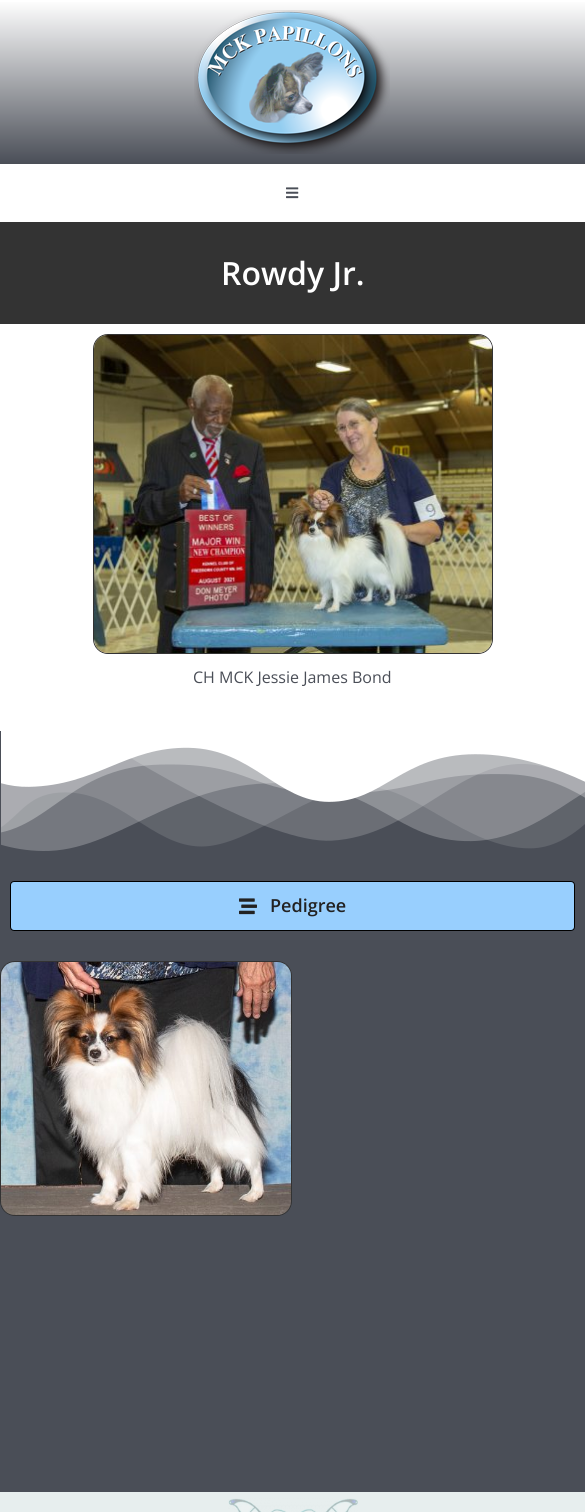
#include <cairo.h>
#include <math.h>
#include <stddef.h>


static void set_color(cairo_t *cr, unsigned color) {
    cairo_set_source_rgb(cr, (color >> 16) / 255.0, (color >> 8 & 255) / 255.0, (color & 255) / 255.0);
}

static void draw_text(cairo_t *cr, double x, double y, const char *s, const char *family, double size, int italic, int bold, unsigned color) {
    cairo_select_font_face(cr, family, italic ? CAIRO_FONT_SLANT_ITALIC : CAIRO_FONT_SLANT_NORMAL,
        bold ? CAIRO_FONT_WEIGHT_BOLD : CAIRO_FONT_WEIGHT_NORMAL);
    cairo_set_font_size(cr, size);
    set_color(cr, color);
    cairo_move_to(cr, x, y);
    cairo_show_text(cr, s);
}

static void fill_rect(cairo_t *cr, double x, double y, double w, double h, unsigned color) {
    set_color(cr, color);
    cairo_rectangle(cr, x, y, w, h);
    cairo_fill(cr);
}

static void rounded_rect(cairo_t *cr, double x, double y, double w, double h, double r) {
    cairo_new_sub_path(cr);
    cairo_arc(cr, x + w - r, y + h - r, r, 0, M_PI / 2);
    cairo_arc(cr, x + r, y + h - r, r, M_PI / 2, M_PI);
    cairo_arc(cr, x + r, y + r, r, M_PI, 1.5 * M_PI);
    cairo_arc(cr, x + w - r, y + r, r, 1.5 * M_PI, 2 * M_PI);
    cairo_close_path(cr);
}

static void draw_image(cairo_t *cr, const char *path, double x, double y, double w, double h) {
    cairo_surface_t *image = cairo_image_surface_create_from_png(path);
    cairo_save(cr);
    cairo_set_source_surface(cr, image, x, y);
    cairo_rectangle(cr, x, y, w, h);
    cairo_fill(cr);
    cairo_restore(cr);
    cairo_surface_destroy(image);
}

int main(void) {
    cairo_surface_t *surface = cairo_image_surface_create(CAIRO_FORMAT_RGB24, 585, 1512);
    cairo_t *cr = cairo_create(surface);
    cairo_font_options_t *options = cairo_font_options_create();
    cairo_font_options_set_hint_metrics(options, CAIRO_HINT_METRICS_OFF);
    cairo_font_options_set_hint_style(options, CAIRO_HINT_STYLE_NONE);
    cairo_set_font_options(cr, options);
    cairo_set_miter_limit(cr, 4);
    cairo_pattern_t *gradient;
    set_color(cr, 0xFFFFFF);
    cairo_paint(cr);
    gradient = cairo_pattern_create_linear(293, 0, 293, 164);
    cairo_pattern_add_color_stop_rgba(gradient, 0, 1, 1, 1, 1);
    cairo_pattern_add_color_stop_rgba(gradient, 1, 0.29, 0.306, 0.341, 1);
    cairo_set_source(cr, gradient);
    cairo_pattern_destroy(gradient);
    cairo_rectangle(cr, 0, 2, 585, 162);
    cairo_fill(cr);
    draw_image(cr, "assets/img1.png", 194, 10, 196, 144);
    draw_image(cr, "assets/img2.png", 286, 187, 13, 12);
    fill_rect(cr, 0, 222, 585, 102, 0x333333);
    draw_text(cr, 221, 285, "Rowdy Jr.", "Open Sans SemiBold", 32, 0, 0, 0xFFFFFF);
    rounded_rect(cr, 93.5, 334.5, 399, 319, 14.5);
    set_color(cr, 0x333333);
    cairo_set_line_width(cr, 1);
    cairo_stroke(cr);
    draw_image(cr, "assets/img3.png", 94, 335, 398, 318);
    draw_text(cr, 193, 683, "CH MCK Jessie James Bond", "Open Sans", 16, 0, 0, 0x4A4E57);
    fill_rect(cr, 0, 731, 585, 761, 0x4A4E57);
    draw_image(cr, "assets/img4.png", 1, 731, 584, 120);
    set_color(cr, 0x98CFFE);
    rounded_rect(cr, 10.5, 881.5, 564, 49, 3.5);
    cairo_fill_preserve(cr);
    set_color(cr, 0x000000);
    cairo_stroke(cr);
    draw_image(cr, "assets/img5.png", 239, 898, 18, 17);
    draw_text(cr, 270, 912, "Pedigree", "Open Sans SemiBold", 18, 0, 0, 0x222222);
    rounded_rect(cr, 0.5, 961.5, 291, 254, 14.5);
    set_color(cr, 0x333333);
    cairo_stroke(cr);
    draw_image(cr, "assets/img6.png", 1, 962, 290, 253);
    fill_rect(cr, 0, 1492, 585, 20, 0xE7EEEE);
    draw_image(cr, "assets/img7.png", 228, 1498, 130, 14);
    cairo_surface_write_to_png(surface, "output.png");
    cairo_font_options_destroy(options);
    cairo_destroy(cr);
    cairo_surface_destroy(surface);
    return 0;
}
